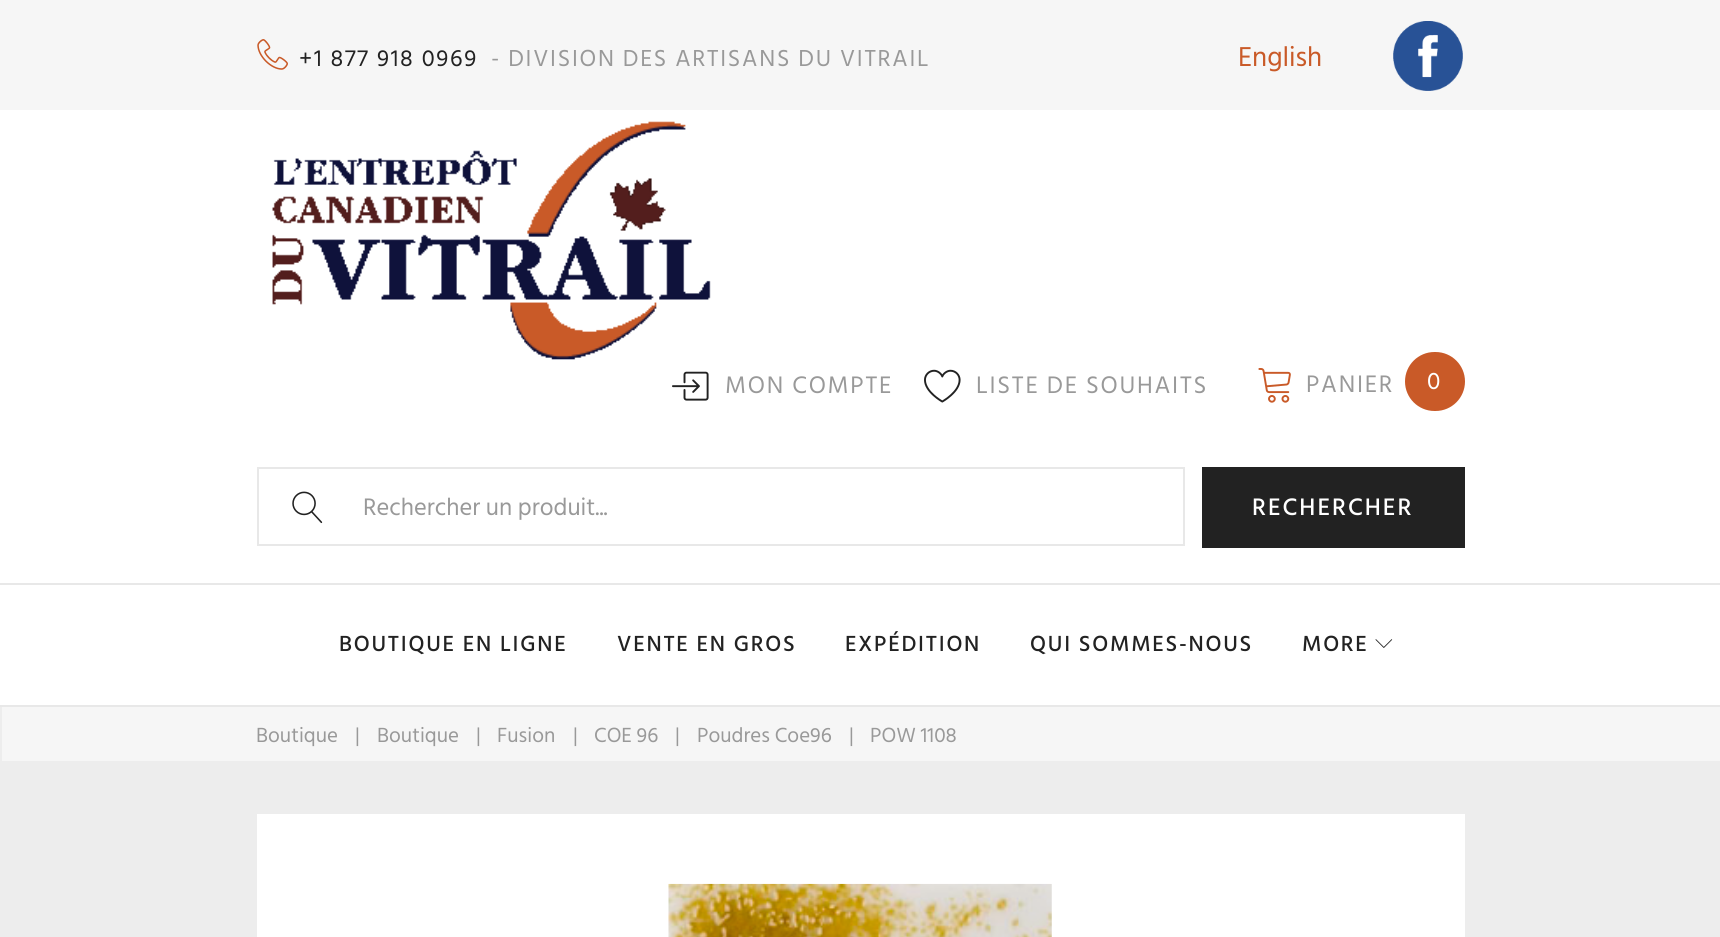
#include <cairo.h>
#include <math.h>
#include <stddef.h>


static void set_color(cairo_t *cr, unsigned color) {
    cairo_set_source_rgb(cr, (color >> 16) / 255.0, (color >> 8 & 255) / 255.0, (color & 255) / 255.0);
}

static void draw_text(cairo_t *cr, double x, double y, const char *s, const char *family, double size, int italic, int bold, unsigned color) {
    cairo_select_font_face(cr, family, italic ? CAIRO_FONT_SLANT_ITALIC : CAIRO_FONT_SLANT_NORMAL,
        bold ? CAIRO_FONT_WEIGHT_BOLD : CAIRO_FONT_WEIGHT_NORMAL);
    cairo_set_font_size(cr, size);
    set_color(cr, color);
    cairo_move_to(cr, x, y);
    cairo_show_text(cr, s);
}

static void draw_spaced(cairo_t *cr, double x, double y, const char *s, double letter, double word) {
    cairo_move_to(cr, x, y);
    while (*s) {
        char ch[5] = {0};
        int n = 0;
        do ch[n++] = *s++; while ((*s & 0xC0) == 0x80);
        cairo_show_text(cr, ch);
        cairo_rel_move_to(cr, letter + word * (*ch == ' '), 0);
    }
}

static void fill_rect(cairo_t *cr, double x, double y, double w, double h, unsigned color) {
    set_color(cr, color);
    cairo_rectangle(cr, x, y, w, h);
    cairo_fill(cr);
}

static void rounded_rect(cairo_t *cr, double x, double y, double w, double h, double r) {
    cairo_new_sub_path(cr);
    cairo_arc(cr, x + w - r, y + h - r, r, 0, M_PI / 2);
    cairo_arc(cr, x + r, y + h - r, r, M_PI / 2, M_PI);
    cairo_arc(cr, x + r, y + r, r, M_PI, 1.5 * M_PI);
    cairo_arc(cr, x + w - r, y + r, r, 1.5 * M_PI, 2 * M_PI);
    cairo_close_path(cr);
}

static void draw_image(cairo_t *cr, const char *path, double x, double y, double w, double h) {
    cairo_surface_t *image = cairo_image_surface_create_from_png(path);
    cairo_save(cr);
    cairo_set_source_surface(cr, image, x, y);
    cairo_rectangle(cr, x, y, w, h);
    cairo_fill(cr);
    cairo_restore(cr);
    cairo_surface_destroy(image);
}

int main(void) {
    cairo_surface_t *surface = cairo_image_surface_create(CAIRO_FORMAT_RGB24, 1720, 937);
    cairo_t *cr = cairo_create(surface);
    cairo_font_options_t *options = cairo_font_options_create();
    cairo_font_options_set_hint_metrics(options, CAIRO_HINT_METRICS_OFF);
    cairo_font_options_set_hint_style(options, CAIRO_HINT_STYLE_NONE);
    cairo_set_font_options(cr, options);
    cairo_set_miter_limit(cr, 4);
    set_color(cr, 0xEDEDED);
    cairo_paint(cr);
    fill_rect(cr, 0, 0, 1720, 110, 0xF6F6F6);
    draw_image(cr, "assets/img1.png", 257, 39, 31, 31);
    cairo_select_font_face(cr, "Hind Siliguri", CAIRO_FONT_SLANT_NORMAL, CAIRO_FONT_WEIGHT_NORMAL);
    cairo_set_font_size(cr, 23.75);
    set_color(cr, 0x222222);
    draw_spaced(cr, 299, 66, "+1 877 918 0969", 1.75, 0);
    set_color(cr, 0x999999);
    draw_spaced(cr, 491, 66, "- DIVISION DES ARTISANS DU VITRAIL", 1.75, 0);
    draw_text(cr, 1238, 66, "English", "Hind Siliguri", 28, 0, 0, 0xC95A28);
    draw_image(cr, "assets/img2.png", 1393, 21, 70, 70);
    fill_rect(cr, 0, 110, 1720, 595, 0xFFFFFF);
    draw_image(cr, "assets/img3.png", 272, 121, 439, 239);
    draw_image(cr, "assets/img4.png", 672, 371, 37, 30);
    cairo_set_font_size(cr, 24.5);
    set_color(cr, 0x999999);
    draw_spaced(cr, 725, 393, "MON COMPTE", 1.75, 0);
    draw_image(cr, "assets/img5.png", 924, 369, 37, 34);
    draw_spaced(cr, 976, 393, "LISTE DE SOUHAITS", 1.75, 0);
    draw_image(cr, "assets/img6.png", 1258, 368, 33, 35);
    draw_spaced(cr, 1306, 392, "PANIER", 1.75, 0);
    set_color(cr, 0xC95A28);
    rounded_rect(cr, 1405, 352, 60, 59, 29.5);
    cairo_fill(cr);
    draw_text(cr, 1427, 389, "0", "Hind Siliguri", 24.5, 0, 0, 0xFFFFFF);
    cairo_rectangle(cr, 258, 468, 926, 77);
    set_color(cr, 0xE8E8E8);
    cairo_stroke(cr);
    draw_image(cr, "assets/img7.png", 292, 491, 31, 33);
    draw_text(cr, 363, 515, "Rechercher un produit...", "Hind Siliguri", 24.5, 0, 0, 0x999999);
    fill_rect(cr, 1202, 467, 263, 81, 0x222222);
    cairo_select_font_face(cr, "Hind Siliguri Medium", CAIRO_FONT_SLANT_NORMAL, CAIRO_FONT_WEIGHT_NORMAL);
    set_color(cr, 0xFFFFFF);
    draw_spaced(cr, 1252, 515, "RECHERCHER", 2, 0);
    fill_rect(cr, 0, 583, 1720, 2, 0xE8E8E8);
    cairo_set_font_size(cr, 22.4);
    set_color(cr, 0x222222);
    draw_spaced(cr, 339, 651, "BOUTIQUE EN LIGNE", 1.75, 0);
    draw_spaced(cr, 617, 651, "VENTE EN GROS", 1.75, 0);
    draw_spaced(cr, 845, 651, "EXPÉDITION", 1.75, 0);
    draw_spaced(cr, 1030, 651, "QUI SOMMES-NOUS", 1.75, 0);
    draw_spaced(cr, 1302, 651, "MORE", 1.75, 0);
    draw_image(cr, "assets/img8.png", 1375, 639, 18, 9);
    fill_rect(cr, 0, 705, 1720, 2, 0xE8E8E8);
    fill_rect(cr, 2, 707, 1718, 54, 0xF6F6F6);
    draw_text(cr, 256, 742, "Boutique", "Hind Siliguri", 21, 0, 0, 0x999999);
    draw_text(cr, 355, 742, "|", "Hind Siliguri", 21, 0, 0, 0x999999);
    draw_text(cr, 377, 742, "Boutique", "Hind Siliguri", 21, 0, 0, 0x999999);
    draw_text(cr, 476, 742, "|", "Hind Siliguri", 21, 0, 0, 0x999999);
    draw_text(cr, 497, 742, "Fusion", "Hind Siliguri", 21, 0, 0, 0x999999);
    draw_text(cr, 573, 742, "|", "Hind Siliguri", 21, 0, 0, 0x999999);
    draw_text(cr, 594, 742, "COE 96", "Hind Siliguri", 21, 0, 0, 0x999999);
    draw_text(cr, 675, 742, "|", "Hind Siliguri", 21, 0, 0, 0x999999);
    draw_text(cr, 697, 742, "Poudres Coe96", "Hind Siliguri", 21, 0, 0, 0x999999);
    draw_text(cr, 849, 742, "|", "Hind Siliguri", 21, 0, 0, 0x999999);
    draw_text(cr, 870, 742, "POW 1108", "Hind Siliguri", 21, 0, 0, 0x999999);
    fill_rect(cr, 257, 814, 1208, 123, 0xFFFFFF);
    draw_image(cr, "assets/img9.png", 668, 883, 384, 54);
    cairo_surface_write_to_png(surface, "output.png");
    cairo_font_options_destroy(options);
    cairo_destroy(cr);
    cairo_surface_destroy(surface);
    return 0;
}
